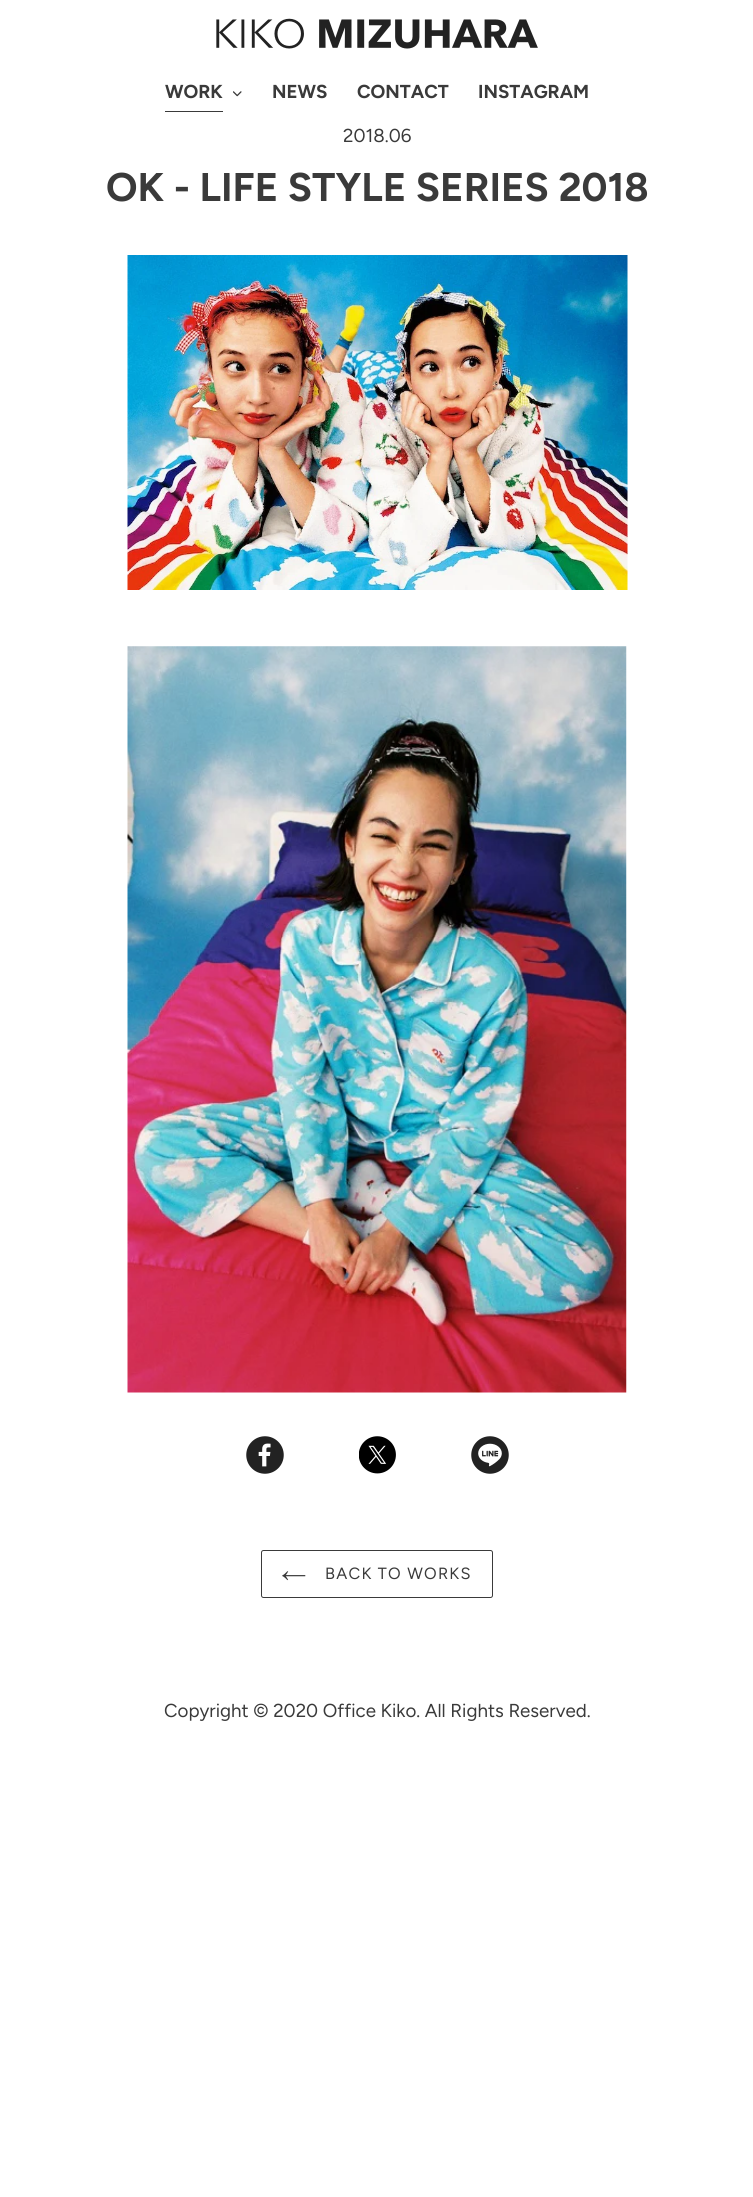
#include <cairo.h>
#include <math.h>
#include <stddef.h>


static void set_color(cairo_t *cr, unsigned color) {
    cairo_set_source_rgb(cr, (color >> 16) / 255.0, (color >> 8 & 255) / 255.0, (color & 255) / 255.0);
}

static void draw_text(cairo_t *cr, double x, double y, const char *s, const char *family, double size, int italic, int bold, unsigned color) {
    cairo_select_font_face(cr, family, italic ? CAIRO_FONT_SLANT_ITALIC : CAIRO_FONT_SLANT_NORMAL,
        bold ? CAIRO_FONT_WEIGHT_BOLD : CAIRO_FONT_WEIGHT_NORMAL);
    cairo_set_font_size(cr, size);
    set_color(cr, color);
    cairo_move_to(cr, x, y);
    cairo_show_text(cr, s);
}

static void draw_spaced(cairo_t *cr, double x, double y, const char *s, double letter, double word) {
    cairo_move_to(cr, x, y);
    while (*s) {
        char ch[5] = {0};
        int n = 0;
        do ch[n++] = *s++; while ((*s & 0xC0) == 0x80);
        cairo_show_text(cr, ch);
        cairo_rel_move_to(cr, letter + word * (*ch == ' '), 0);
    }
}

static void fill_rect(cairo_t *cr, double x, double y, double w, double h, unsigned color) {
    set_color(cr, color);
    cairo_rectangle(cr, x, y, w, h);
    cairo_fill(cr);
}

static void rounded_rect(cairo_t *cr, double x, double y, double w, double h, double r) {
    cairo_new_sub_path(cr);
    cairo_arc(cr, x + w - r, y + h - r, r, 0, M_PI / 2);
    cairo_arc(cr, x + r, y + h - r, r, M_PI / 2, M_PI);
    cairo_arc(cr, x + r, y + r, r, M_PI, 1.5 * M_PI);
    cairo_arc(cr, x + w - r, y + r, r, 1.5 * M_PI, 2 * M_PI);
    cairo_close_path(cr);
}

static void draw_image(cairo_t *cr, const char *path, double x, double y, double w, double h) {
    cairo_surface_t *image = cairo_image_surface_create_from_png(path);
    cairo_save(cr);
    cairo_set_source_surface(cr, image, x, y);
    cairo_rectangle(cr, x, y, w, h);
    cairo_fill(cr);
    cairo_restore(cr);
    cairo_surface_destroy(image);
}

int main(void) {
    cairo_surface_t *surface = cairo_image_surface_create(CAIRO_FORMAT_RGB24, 753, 2197);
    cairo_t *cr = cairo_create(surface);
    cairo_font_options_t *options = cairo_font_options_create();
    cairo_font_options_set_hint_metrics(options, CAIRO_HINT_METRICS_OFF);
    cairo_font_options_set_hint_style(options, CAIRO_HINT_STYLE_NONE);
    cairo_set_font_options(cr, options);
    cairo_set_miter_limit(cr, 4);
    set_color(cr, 0xFFFFFF);
    cairo_paint(cr);
    draw_image(cr, "assets/img1.png", 216, 18, 322, 31);
    draw_text(cr, 165, 98, "WORK", "Figtree", 18.75, 0, 1, 0x3A3A3A);
    fill_rect(cr, 165, 111, 58, 1, 0x3A3A3A);
    draw_image(cr, "assets/img2.png", 233, 91, 9, 6);
    draw_text(cr, 272, 98, "NEWS", "Figtree", 18.75, 0, 1, 0x3A3A3A);
    draw_text(cr, 357, 98, "CONTACT", "Figtree", 18.75, 0, 1, 0x3A3A3A);
    draw_text(cr, 478, 98, "INSTAGRAM", "Figtree", 18.75, 0, 1, 0x3A3A3A);
    draw_text(cr, 343, 142, "2018.06", "Figtree", 18.75, 0, 0, 0x3A3A3A);
    draw_text(cr, 106, 201, "OK - LIFE STYLE SERIES 2018", "Figtree", 40, 0, 1, 0x3A3A3A);
    draw_image(cr, "assets/img3.png", 127, 255, 501, 335);
    draw_image(cr, "assets/img4.png", 127, 646, 500, 747);
    draw_image(cr, "assets/img5.png", 246, 1436, 38, 38);
    draw_image(cr, "assets/img6.png", 359, 1436, 37, 38);
    draw_image(cr, "assets/img7.png", 471, 1436, 38, 38);
    rounded_rect(cr, 261.5, 1550.5, 231, 47, 2);
    cairo_set_line_width(cr, 1);
    cairo_stroke(cr);
    draw_image(cr, "assets/img8.png", 282, 1571, 24, 10);
    cairo_select_font_face(cr, "Figtree", CAIRO_FONT_SLANT_NORMAL, CAIRO_FONT_WEIGHT_NORMAL);
    cairo_set_font_size(cr, 16.25);
    draw_spaced(cr, 325, 1579, "BACK TO WORKS", 1.25, 0);
    draw_text(cr, 164, 1717, "Copyright © 2020 Office Kiko. All Rights Reserved.", "Figtree", 18.75, 0, 0, 0x3A3A3A);
    cairo_surface_write_to_png(surface, "output.png");
    cairo_font_options_destroy(options);
    cairo_destroy(cr);
    cairo_surface_destroy(surface);
    return 0;
}
